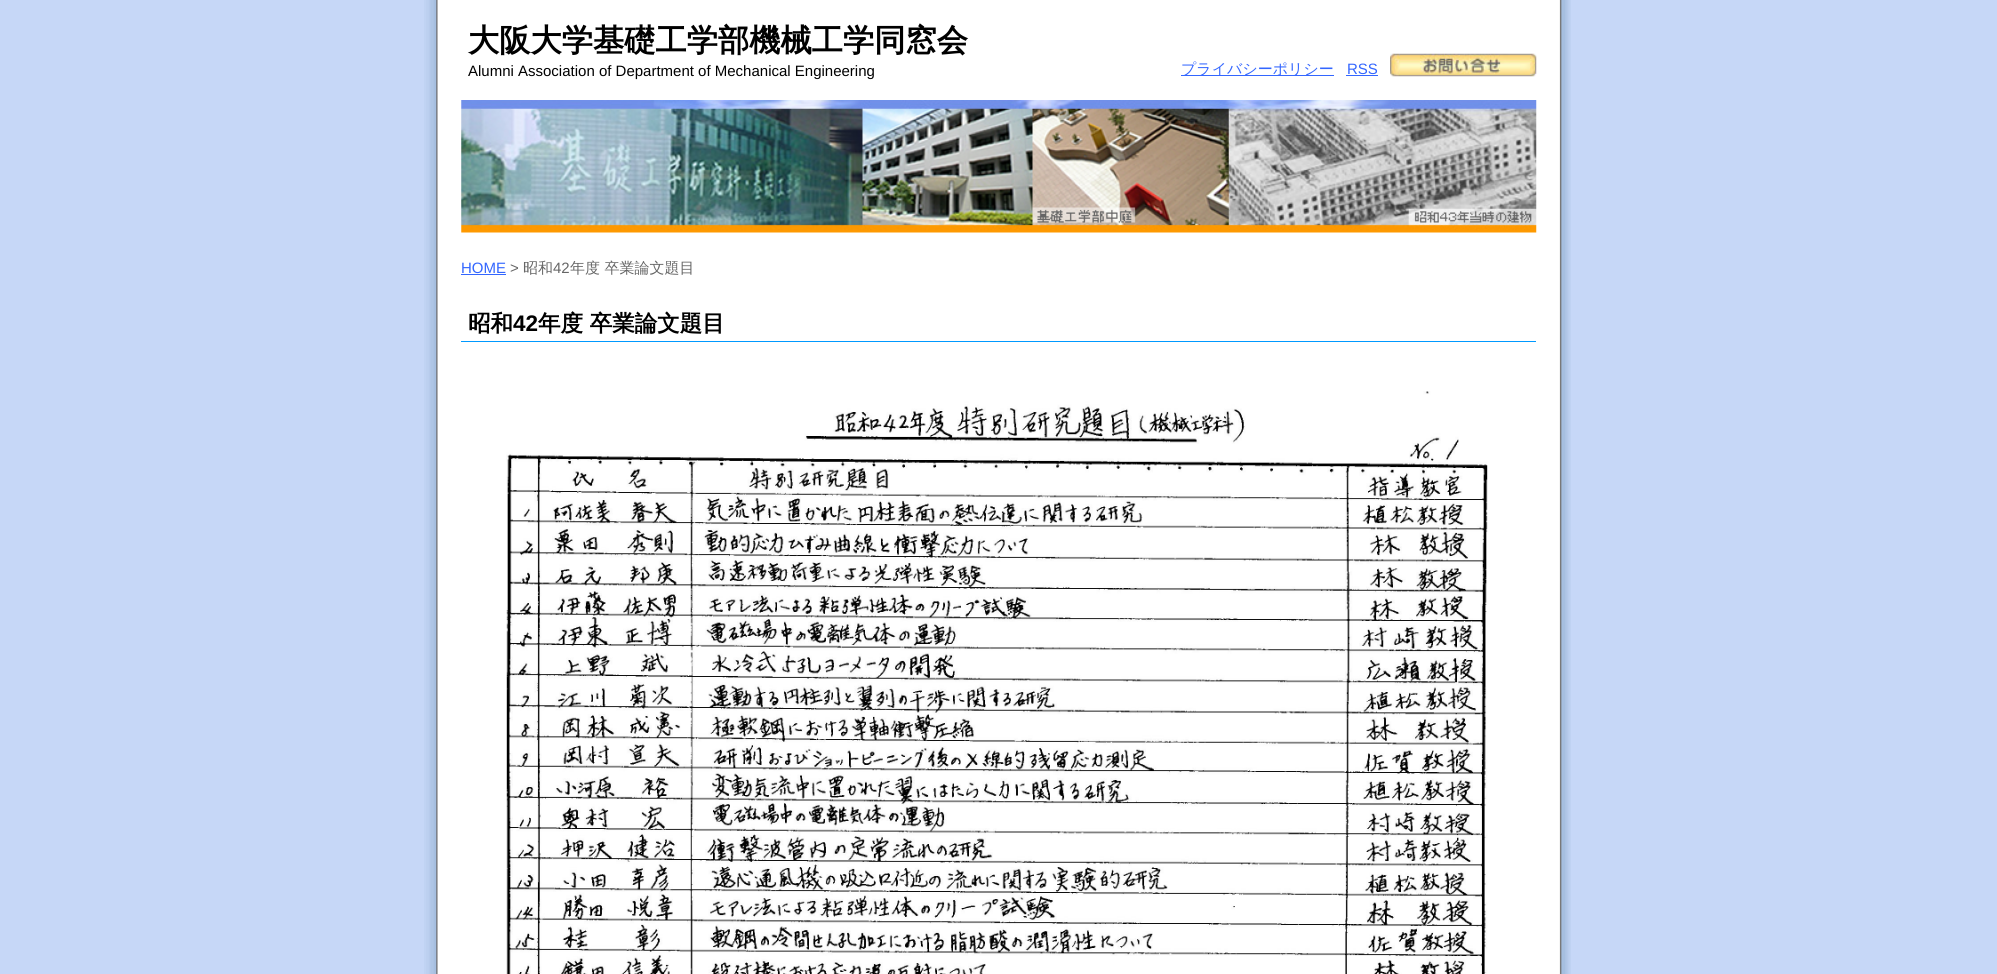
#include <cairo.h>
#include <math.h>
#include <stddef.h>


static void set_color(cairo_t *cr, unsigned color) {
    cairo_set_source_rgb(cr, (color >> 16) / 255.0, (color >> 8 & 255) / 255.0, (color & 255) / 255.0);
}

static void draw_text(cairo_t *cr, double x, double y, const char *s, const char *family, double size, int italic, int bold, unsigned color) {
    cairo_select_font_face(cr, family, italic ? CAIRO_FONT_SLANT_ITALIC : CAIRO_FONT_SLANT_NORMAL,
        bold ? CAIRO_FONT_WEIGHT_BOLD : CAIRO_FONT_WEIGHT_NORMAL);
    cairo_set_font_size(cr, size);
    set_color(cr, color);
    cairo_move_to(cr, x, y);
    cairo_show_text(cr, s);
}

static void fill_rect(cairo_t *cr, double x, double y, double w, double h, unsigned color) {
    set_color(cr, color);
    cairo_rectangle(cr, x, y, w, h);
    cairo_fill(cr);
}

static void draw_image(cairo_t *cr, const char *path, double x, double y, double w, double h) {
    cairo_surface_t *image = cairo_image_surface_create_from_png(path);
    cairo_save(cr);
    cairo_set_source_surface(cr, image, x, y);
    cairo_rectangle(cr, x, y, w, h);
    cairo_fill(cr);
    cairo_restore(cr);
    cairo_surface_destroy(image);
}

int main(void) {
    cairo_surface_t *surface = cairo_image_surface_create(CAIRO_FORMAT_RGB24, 1997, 974);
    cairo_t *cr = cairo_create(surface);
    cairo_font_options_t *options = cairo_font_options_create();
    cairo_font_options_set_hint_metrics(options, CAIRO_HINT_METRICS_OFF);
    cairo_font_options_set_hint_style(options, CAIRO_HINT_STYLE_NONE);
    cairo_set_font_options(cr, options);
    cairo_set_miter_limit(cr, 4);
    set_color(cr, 0xC6D7F7);
    cairo_paint(cr);
    draw_image(cr, "assets/img1.png", 424, 0, 1147, 974);
    draw_text(cr, 468, 51, "大阪大学基礎工学部機械工学同窓会", "WenQuanYi Zen Hei", 31.25, 0, 1, 0x000000);
    draw_text(cr, 468, 76, "Alumni Association of Department of Mechanical Engineering", "Liberation Sans", 15, 0, 0, 0x000000);
    fill_rect(cr, 1181, 75, 153, 1, 0x3366FF);
    draw_text(cr, 1181, 74, "プライバシーポリシー", "WenQuanYi Zen Hei Medium", 15, 0, 0, 0x3366FF);
    draw_text(cr, 1347, 74, "RSS", "Liberation Sans", 15, 0, 0, 0x3366FF);
    fill_rect(cr, 1346, 75, 32, 1, 0x3366FF);
    draw_image(cr, "assets/img2.png", 1390, 53, 147, 24);
    draw_image(cr, "assets/img3.png", 461, 100, 1076, 133);
    draw_text(cr, 461, 273, "HOME", "Liberation Sans", 15, 0, 0, 0x3366FF);
    fill_rect(cr, 461, 274, 45, 1, 0x3366FF);
    draw_text(cr, 510, 273, ">", "Liberation Sans", 15, 0, 0, 0x666666);
    draw_text(cr, 523, 273, "昭和", "WenQuanYi Zen Hei Medium", 15, 0, 0, 0x666666);
    draw_text(cr, 553, 273, "42", "Liberation Sans", 15, 0, 0, 0x666666);
    draw_text(cr, 570, 273, "年度 卒業論文題目", "WenQuanYi Zen Hei Medium", 15, 0, 0, 0x666666);
    fill_rect(cr, 461, 341, 1075, 1, 0x0099FF);
    draw_text(cr, 468, 331, "昭和", "WenQuanYi Zen Hei", 22.5, 0, 1, 0x000000);
    draw_text(cr, 513, 331, "42", "Liberation Sans", 22.5, 0, 1, 0x000000);
    draw_text(cr, 538, 331, "年度 卒業論文題目", "WenQuanYi Zen Hei", 22.5, 0, 1, 0x000000);
    draw_image(cr, "assets/img4.png", 506, 391, 982, 583);
    cairo_surface_write_to_png(surface, "output.png");
    cairo_font_options_destroy(options);
    cairo_destroy(cr);
    cairo_surface_destroy(surface);
    return 0;
}
